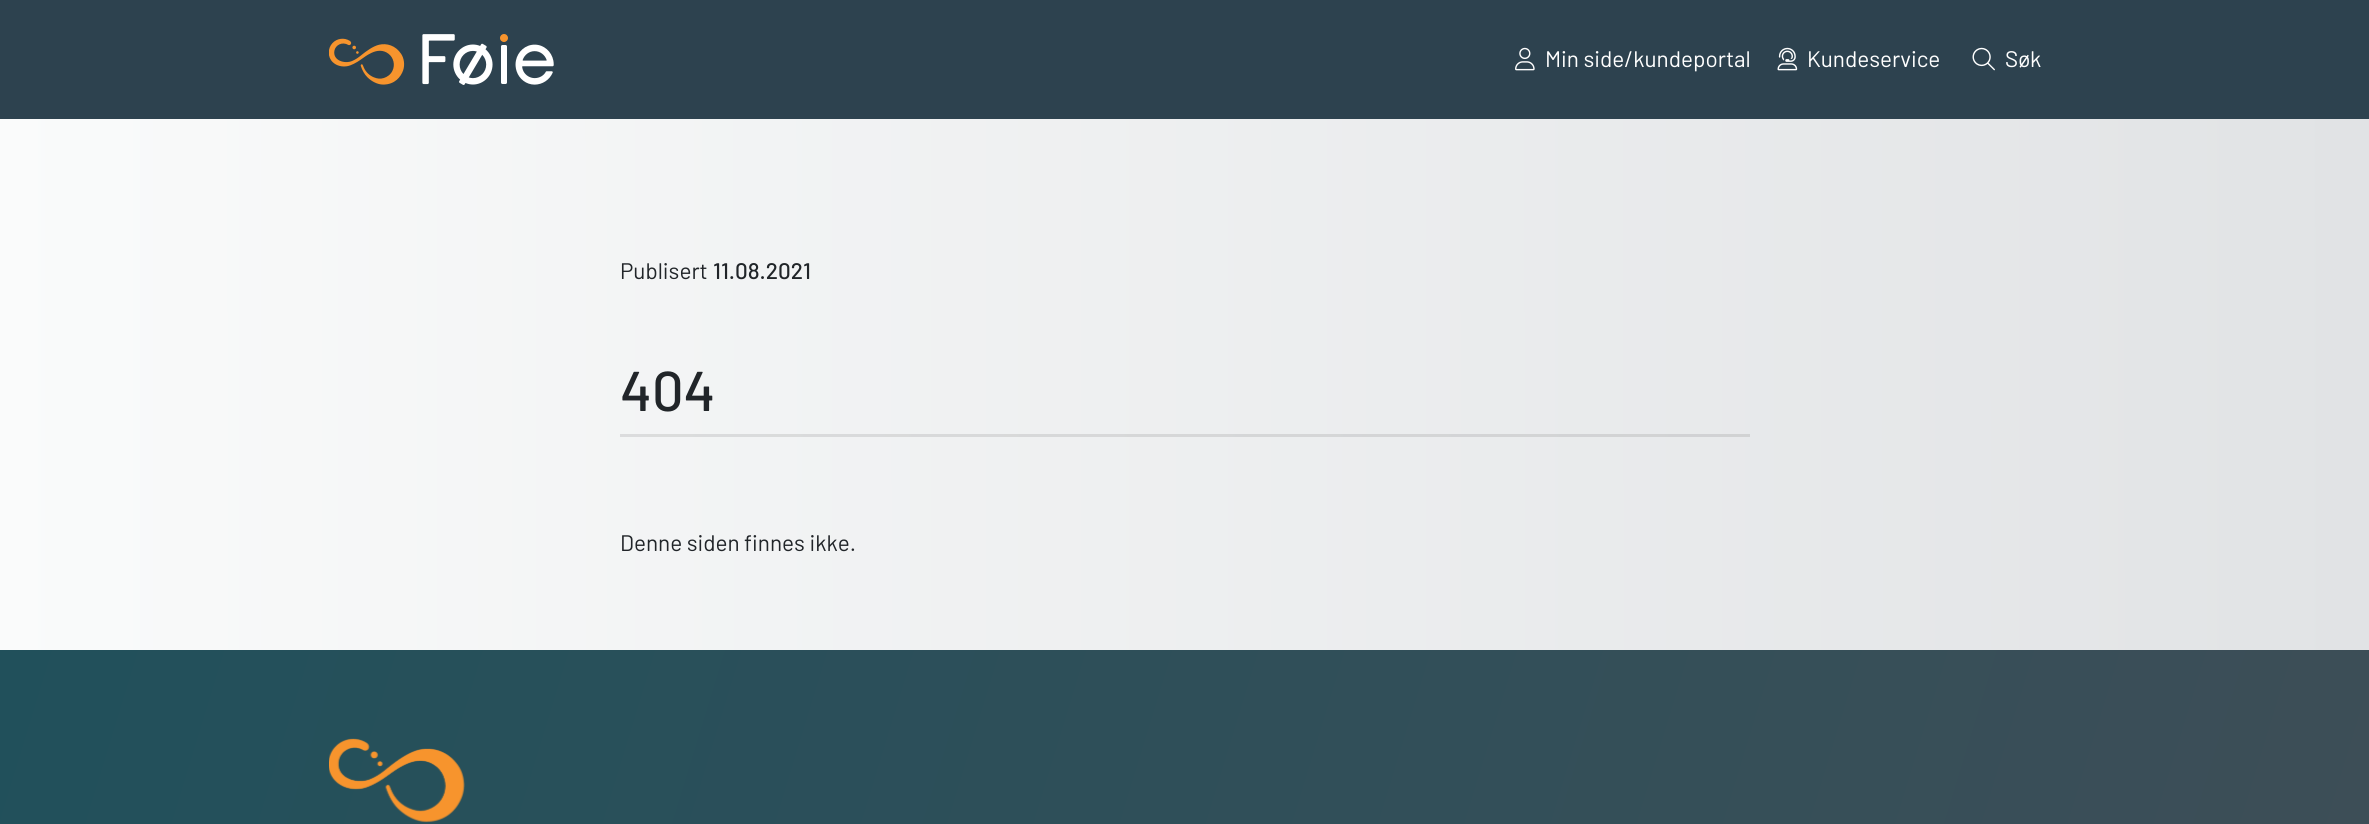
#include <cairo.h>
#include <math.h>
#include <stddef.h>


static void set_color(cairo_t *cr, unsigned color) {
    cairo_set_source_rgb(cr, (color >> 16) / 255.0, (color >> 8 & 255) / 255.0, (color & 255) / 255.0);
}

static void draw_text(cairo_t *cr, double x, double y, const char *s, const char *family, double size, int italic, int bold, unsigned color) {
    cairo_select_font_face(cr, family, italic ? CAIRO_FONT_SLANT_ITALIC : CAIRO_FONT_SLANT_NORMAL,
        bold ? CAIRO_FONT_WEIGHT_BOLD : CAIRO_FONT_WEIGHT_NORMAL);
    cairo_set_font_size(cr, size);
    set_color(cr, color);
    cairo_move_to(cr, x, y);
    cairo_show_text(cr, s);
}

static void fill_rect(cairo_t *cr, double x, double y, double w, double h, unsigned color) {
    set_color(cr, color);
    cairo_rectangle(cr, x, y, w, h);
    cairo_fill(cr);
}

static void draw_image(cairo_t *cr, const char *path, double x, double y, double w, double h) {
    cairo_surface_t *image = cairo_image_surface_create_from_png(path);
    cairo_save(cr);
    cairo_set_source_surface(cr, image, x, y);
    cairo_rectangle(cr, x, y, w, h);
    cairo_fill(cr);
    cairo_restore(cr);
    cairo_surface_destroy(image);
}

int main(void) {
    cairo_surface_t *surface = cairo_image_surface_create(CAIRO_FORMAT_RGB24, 2369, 824);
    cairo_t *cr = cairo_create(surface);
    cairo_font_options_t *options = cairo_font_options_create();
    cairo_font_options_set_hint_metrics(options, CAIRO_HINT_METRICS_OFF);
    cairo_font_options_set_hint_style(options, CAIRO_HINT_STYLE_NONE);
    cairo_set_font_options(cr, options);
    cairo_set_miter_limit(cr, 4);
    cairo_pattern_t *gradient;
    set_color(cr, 0xFFFFFF);
    cairo_paint(cr);
    gradient = cairo_pattern_create_linear(0, 413, 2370, 412);
    cairo_pattern_add_color_stop_rgba(gradient, 0, 0.98, 0.984, 0.984, 1);
    cairo_pattern_add_color_stop_rgba(gradient, 1, 0.882, 0.89, 0.898, 1);
    cairo_set_source(cr, gradient);
    cairo_pattern_destroy(gradient);
    cairo_rectangle(cr, 0, 119, 2369, 531);
    cairo_fill(cr);
    gradient = cairo_pattern_create_linear(0, 413, 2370, 412);
    cairo_pattern_add_color_stop_rgba(gradient, 0, 0.882, 0.886, 0.886, 1);
    cairo_pattern_add_color_stop_rgba(gradient, 1, 0.796, 0.8, 0.808, 1);
    cairo_set_source(cr, gradient);
    cairo_pattern_destroy(gradient);
    cairo_rectangle(cr, 620, 434, 1130, 3);
    cairo_fill(cr);
    fill_rect(cr, 0, 0, 2369, 119, 0x2D424F);
    draw_image(cr, "assets/img1.png", 329, 34, 225, 51);
    draw_image(cr, "assets/img2.png", 1515, 47, 20, 24);
    draw_text(cr, 1545, 67, "Min side/kundeportal", "Barlow", 22.5, 0, 0, 0xFFFFFF);
    draw_image(cr, "assets/img3.png", 1777, 47, 21, 24);
    draw_text(cr, 1807, 67, "Kundeservice", "Barlow", 22.5, 0, 0, 0xFFFFFF);
    draw_image(cr, "assets/img4.png", 1972, 47, 23, 24);
    draw_text(cr, 2005, 67, "Søk", "Barlow", 22.5, 0, 0, 0xFFFFFF);
    draw_text(cr, 620, 279, "Publisert", "Barlow", 22.5, 0, 0, 0x212529);
    draw_text(cr, 713, 279, "11.08.2021", "Barlow Medium", 22.5, 0, 0, 0x212529);
    draw_text(cr, 620, 411, "404", "Barlow Medium", 56, 0, 0, 0x212529);
    draw_text(cr, 620, 551, "Denne siden finnes ikke.", "Barlow", 22.5, 0, 0, 0x212529);
    gradient = cairo_pattern_create_linear(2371, 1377, -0.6, 652);
    cairo_pattern_add_color_stop_rgba(gradient, 0, 0.247, 0.306, 0.341, 1);
    cairo_pattern_add_color_stop_rgba(gradient, 1, 0.129, 0.314, 0.357, 1);
    cairo_set_source(cr, gradient);
    cairo_pattern_destroy(gradient);
    cairo_rectangle(cr, 0, 650, 2369, 174);
    cairo_fill(cr);
    draw_image(cr, "assets/img5.png", 329, 738, 136, 85);
    cairo_surface_write_to_png(surface, "output.png");
    cairo_font_options_destroy(options);
    cairo_destroy(cr);
    cairo_surface_destroy(surface);
    return 0;
}
